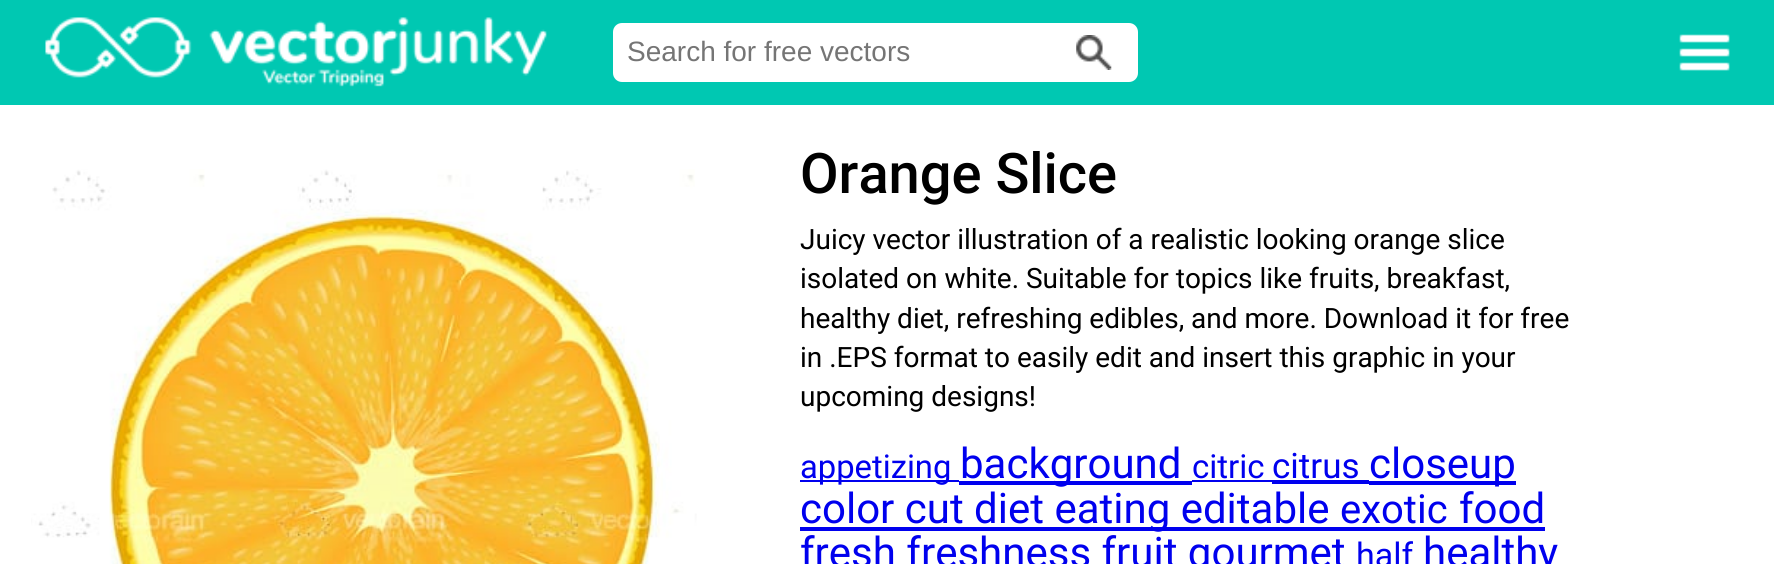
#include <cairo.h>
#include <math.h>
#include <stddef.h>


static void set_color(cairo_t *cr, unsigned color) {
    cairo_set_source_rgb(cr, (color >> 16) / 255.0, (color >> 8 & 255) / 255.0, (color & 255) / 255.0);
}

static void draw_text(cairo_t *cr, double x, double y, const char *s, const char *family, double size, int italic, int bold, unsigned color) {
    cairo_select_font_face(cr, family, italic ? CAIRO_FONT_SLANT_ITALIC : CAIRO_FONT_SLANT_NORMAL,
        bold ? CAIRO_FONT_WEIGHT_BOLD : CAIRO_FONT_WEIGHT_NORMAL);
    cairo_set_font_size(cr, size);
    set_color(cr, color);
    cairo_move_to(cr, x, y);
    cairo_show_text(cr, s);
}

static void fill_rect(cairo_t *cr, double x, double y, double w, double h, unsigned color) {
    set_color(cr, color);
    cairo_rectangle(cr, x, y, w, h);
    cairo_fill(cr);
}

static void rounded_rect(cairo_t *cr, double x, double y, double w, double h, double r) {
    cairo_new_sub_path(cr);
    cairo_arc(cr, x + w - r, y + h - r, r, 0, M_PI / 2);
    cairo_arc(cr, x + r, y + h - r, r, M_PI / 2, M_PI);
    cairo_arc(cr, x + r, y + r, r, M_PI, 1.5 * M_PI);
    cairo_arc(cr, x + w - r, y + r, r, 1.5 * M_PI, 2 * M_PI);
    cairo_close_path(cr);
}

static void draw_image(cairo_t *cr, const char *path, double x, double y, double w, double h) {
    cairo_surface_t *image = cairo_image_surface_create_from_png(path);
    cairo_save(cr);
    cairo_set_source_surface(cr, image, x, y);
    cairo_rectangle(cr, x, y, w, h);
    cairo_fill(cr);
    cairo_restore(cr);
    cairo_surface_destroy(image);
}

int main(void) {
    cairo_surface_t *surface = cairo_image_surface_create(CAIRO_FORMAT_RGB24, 1774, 564);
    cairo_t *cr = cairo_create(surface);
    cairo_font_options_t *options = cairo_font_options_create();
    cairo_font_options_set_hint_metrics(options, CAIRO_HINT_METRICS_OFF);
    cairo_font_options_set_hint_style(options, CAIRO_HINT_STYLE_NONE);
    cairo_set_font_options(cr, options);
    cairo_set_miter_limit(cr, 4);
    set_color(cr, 0xFFFFFF);
    cairo_paint(cr);
    fill_rect(cr, 0, 0, 1774, 105, 0x00C8B2);
    draw_image(cr, "assets/img1.png", 45, 17, 502, 70);
    set_color(cr, 0xFFFFFF);
    rounded_rect(cr, 613, 23, 525, 59, 9);
    cairo_fill(cr);
    draw_text(cr, 627, 61, "Search for free vectors", "Liberation Sans", 28, 0, 0, 0x757575);
    draw_image(cr, "assets/img2.png", 1076, 35, 36, 35);
    draw_image(cr, "assets/img3.png", 1679, 34, 51, 37);
    draw_image(cr, "assets/img4.png", 31, 169, 666, 395);
    draw_text(cr, 800, 193, "Orange Slice", "Roboto Medium", 56, 0, 0, 0x000000);
    draw_text(cr, 800, 249, "Juicy vector illustration of a realistic looking orange slice", "Roboto", 28, 0, 0, 0x000000);
    draw_text(cr, 800, 288, "isolated on white. Suitable for topics like fruits, breakfast,", "Roboto", 28, 0, 0, 0x000000);
    draw_text(cr, 800, 328, "healthy diet, refreshing edibles, and more. Download it for free", "Roboto", 28, 0, 0, 0x000000);
    draw_text(cr, 800, 367, "in .EPS format to easily edit and insert this graphic in your", "Roboto", 28, 0, 0, 0x000000);
    draw_text(cr, 800, 406, "upcoming designs!", "Roboto", 28, 0, 0, 0x000000);
    fill_rect(cr, 800, 480, 159, 2, 0x0000EE);
    draw_text(cr, 800, 478, "appetizing", "Roboto", 32.75, 0, 0, 0x0000EE);
    fill_rect(cr, 959, 481, 233, 4, 0x0000EE);
    draw_text(cr, 960, 478, "background", "Roboto", 42, 0, 0, 0x0000EE);
    draw_text(cr, 1192, 478, "citric", "Roboto", 33, 0, 0, 0x0000EE);
    fill_rect(cr, 1192, 480, 80, 2, 0x0000EE);
    draw_text(cr, 1272, 478, "citrus", "Roboto", 35, 0, 0, 0x0000EE);
    fill_rect(cr, 1272, 480, 97, 4, 0x0000EE);
    fill_rect(cr, 1369, 481, 147, 4, 0x0000EE);
    draw_text(cr, 1369, 478, "closeup", "Roboto", 42, 0, 0, 0x0000EE);
    fill_rect(cr, 800, 527, 745, 4, 0x0000EE);
    draw_text(cr, 800, 523, "color cut diet eating editable", "Roboto", 42, 0, 0, 0x0000EE);
    draw_text(cr, 1340, 523, "exotic", "Roboto", 40, 0, 0, 0x0000EE);
    draw_text(cr, 1459, 523, "food", "Roboto", 42, 0, 0, 0x0000EE);
    draw_text(cr, 800, 567, "fresh freshness fruit gourmet", "Roboto", 42, 0, 0, 0x0000EE);
    draw_text(cr, 1356, 567, "half", "Roboto", 34, 0, 0, 0x0000EE);
    draw_text(cr, 1423, 567, "healthy", "Roboto", 42, 0, 0, 0x0000EE);
    cairo_surface_write_to_png(surface, "output.png");
    cairo_font_options_destroy(options);
    cairo_destroy(cr);
    cairo_surface_destroy(surface);
    return 0;
}
